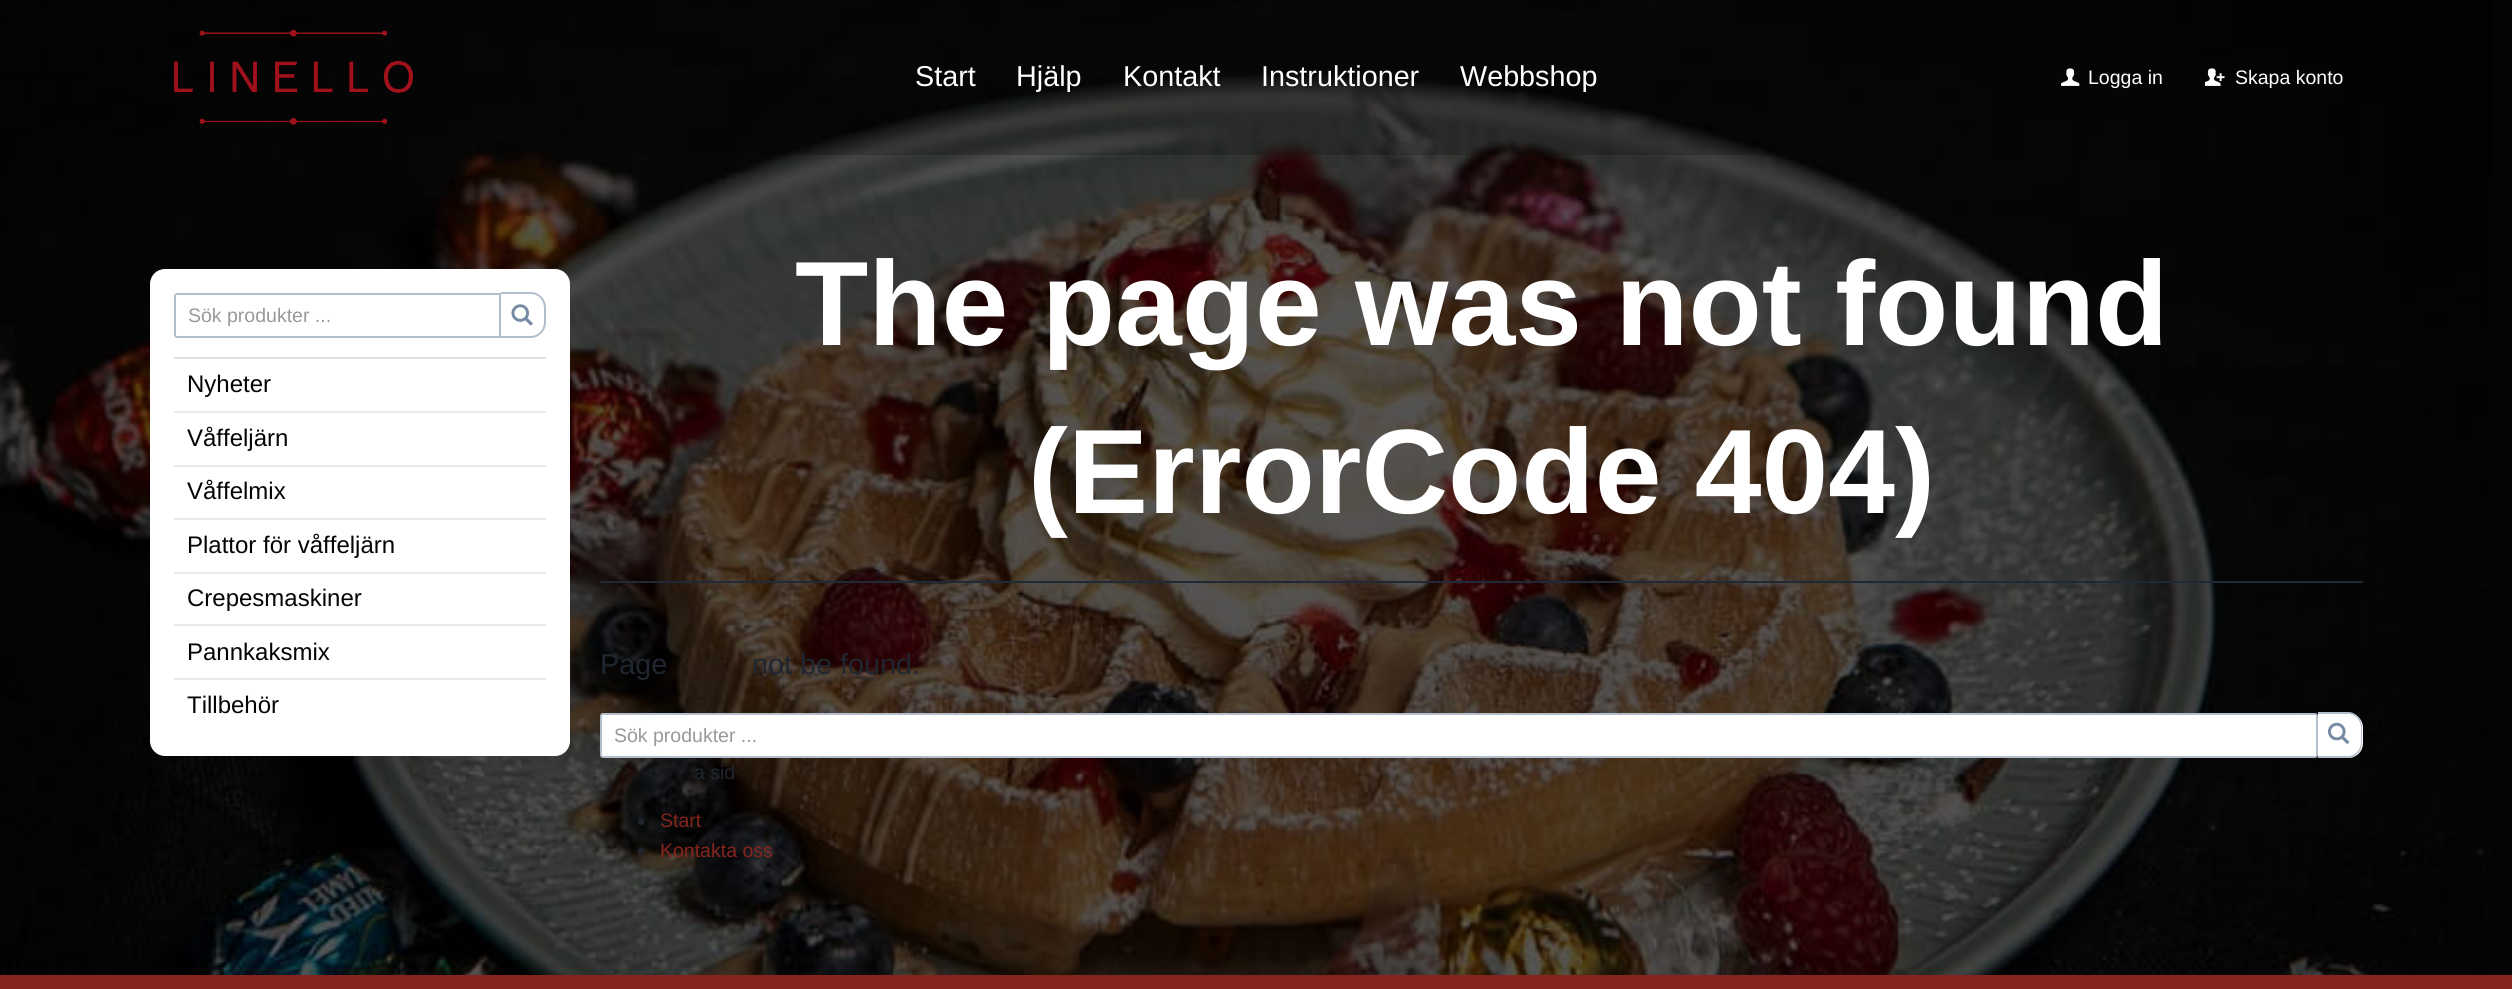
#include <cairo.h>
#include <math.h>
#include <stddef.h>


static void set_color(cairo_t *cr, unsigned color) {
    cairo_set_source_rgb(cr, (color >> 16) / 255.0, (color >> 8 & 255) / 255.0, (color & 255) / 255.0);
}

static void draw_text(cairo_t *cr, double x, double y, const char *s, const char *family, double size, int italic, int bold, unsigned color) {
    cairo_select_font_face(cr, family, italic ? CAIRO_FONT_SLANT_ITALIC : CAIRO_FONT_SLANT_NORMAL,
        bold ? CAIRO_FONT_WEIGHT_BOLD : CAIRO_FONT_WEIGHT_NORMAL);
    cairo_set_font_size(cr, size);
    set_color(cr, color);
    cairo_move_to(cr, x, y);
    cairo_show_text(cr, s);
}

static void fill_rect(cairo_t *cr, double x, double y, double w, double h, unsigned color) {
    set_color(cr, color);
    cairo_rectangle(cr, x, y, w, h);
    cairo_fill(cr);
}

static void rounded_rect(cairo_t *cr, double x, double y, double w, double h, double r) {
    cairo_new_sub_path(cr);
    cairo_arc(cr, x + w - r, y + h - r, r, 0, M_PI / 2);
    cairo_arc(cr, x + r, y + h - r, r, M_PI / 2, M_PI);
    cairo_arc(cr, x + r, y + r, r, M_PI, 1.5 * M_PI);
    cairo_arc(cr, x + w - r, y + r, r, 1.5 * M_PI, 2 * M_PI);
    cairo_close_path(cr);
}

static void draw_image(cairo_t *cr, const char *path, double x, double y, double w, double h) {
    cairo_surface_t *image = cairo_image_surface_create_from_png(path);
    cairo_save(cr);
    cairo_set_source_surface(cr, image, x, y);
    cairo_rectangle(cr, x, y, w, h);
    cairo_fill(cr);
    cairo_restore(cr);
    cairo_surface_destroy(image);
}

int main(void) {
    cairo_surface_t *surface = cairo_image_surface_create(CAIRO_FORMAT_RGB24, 2512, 989);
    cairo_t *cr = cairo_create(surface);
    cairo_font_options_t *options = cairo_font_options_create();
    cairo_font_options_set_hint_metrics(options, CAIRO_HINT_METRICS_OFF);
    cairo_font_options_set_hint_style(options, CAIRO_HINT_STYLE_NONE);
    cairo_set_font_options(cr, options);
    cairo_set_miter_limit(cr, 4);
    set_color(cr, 0x040404);
    cairo_paint(cr);
    draw_image(cr, "assets/img1.png", 0, 0, 2493, 975);
    cairo_set_source_rgba(cr, 0, 0, 0, 0.2);
    cairo_rectangle(cr, 475, 75, 1299, 80);
    cairo_fill(cr);
    draw_text(cr, 915, 86, "Start", "Liberation Sans", 28.75, 0, 0, 0xFFFFFF);
    draw_text(cr, 1016, 86, "Hjälp", "Liberation Sans", 28.75, 0, 0, 0xFFFFFF);
    draw_text(cr, 1123, 86, "Kontakt", "Liberation Sans", 28.75, 0, 0, 0xFFFFFF);
    draw_text(cr, 1261, 86, "Instruktioner", "Liberation Sans", 28.75, 0, 0, 0xFFFFFF);
    draw_text(cr, 1460, 86, "Webbshop", "Liberation Sans", 28.75, 0, 0, 0xFFFFFF);
    draw_image(cr, "assets/img2.png", 174, 29, 239, 96);
    draw_image(cr, "assets/img3.png", 2061, 68, 19, 18);
    draw_text(cr, 2088, 84, "Logga in", "Liberation Sans", 19.5, 0, 0, 0xFFFFFF);
    draw_image(cr, "assets/img4.png", 2205, 68, 20, 18);
    draw_text(cr, 2235, 84, "Skapa konto", "Liberation Sans", 19.5, 0, 0, 0xFFFFFF);
    rounded_rect(cr, 150, 269, 420, 487, 15);
    cairo_fill(cr);
    cairo_new_path(cr);
    cairo_move_to(cr, 177, 294);
    cairo_line_to(cr, 500, 294);
    cairo_line_to(cr, 500, 337);
    cairo_line_to(cr, 177, 337);
    cairo_curve_to(cr, 176, 337, 175, 336, 175, 335);
    cairo_line_to(cr, 175, 296);
    cairo_curve_to(cr, 175, 295, 176, 294, 177, 294);
    cairo_close_path(cr);
    set_color(cr, 0xB3BECD);
    cairo_stroke(cr);
    draw_text(cr, 188, 322, "Sök produkter ...", "Liberation Sans", 19.5, 0, 0, 0x999999);
    set_color(cr, 0xB3BECD);
    cairo_set_fill_rule(cr, CAIRO_FILL_RULE_EVEN_ODD);
    cairo_new_path(cr);
    cairo_move_to(cr, 501, 292);
    cairo_line_to(cr, 531, 292);
    cairo_curve_to(cr, 539, 292, 546, 299, 546, 308);
    cairo_line_to(cr, 546, 322);
    cairo_curve_to(cr, 546, 331, 539, 338, 531, 338);
    cairo_line_to(cr, 501, 338);
    cairo_close_path(cr);
    cairo_move_to(cr, 501, 294);
    cairo_line_to(cr, 531, 294);
    cairo_curve_to(cr, 538, 294, 544, 300, 544, 308);
    cairo_line_to(cr, 544, 322);
    cairo_curve_to(cr, 544, 330, 538, 336, 531, 336);
    cairo_line_to(cr, 501, 336);
    cairo_close_path(cr);
    cairo_fill(cr);
    draw_image(cr, "assets/img5.png", 511, 304, 22, 22);
    fill_rect(cr, 174, 357, 372, 2, 0xDBE0E7);
    fill_rect(cr, 174, 411, 372, 2, 0xE9E9EA);
    draw_text(cr, 187, 392, "Nyheter", "Liberation Sans", 24, 0, 0, 0x040404);
    fill_rect(cr, 174, 465, 372, 2, 0xE9E9EA);
    draw_text(cr, 187, 446, "Våffeljärn", "Liberation Sans", 24, 0, 0, 0x040404);
    fill_rect(cr, 174, 518, 372, 2, 0xE9E9EA);
    draw_text(cr, 187, 499, "Våffelmix", "Liberation Sans", 24, 0, 0, 0x040404);
    fill_rect(cr, 174, 572, 372, 2, 0xE9E9EA);
    draw_text(cr, 187, 553, "Plattor för våffeljärn", "Liberation Sans", 24, 0, 0, 0x040404);
    fill_rect(cr, 174, 624, 372, 2, 0xE9E9EA);
    draw_text(cr, 187, 606, "Crepesmaskiner", "Liberation Sans", 24, 0, 0, 0x040404);
    fill_rect(cr, 174, 678, 372, 2, 0xE9E9EA);
    draw_text(cr, 187, 660, "Pannkaksmix", "Liberation Sans", 24, 0, 0, 0x040404);
    draw_text(cr, 187, 713, "Tillbehör", "Liberation Sans", 24, 0, 0, 0x040404);
    fill_rect(cr, 600, 581, 1763, 2, 0x1F2937);
    draw_text(cr, 795, 345, "The page was not found", "Liberation Sans", 120, 0, 1, 0xFFFFFF);
    draw_text(cr, 1028, 513, "(ErrorCode 404)", "Liberation Sans", 120, 0, 1, 0xFFFFFF);
    draw_text(cr, 600, 674, "Page", "Liberation Sans", 28.75, 0, 0, 0x1F262F);
    draw_text(cr, 752, 674, "not be found.", "Liberation Sans", 28.75, 0, 0, 0x1F262F);
    set_color(cr, 0xFFFFFF);
    rounded_rect(cr, 601, 714, 1716, 43, 2);
    cairo_fill_preserve(cr);
    set_color(cr, 0xB3BECD);
    cairo_stroke(cr);
    draw_text(cr, 614, 742, "Sök produkter ...", "Liberation Sans", 19.5, 0, 0, 0x999999);
    set_color(cr, 0xFFFFFF);
    cairo_new_path(cr);
    cairo_move_to(cr, 2318, 713);
    cairo_line_to(cr, 2348, 713);
    cairo_curve_to(cr, 2356.5, 713, 2363, 719.5, 2363, 728);
    cairo_line_to(cr, 2363, 743);
    cairo_curve_to(cr, 2363, 751.5, 2356.5, 758, 2348, 758);
    cairo_line_to(cr, 2318, 758);
    cairo_close_path(cr);
    cairo_fill(cr);
    set_color(cr, 0xB3BECD);
    cairo_new_path(cr);
    cairo_move_to(cr, 2318, 712);
    cairo_line_to(cr, 2348, 712);
    cairo_curve_to(cr, 2356, 712, 2362, 719, 2362, 728);
    cairo_line_to(cr, 2362, 742);
    cairo_curve_to(cr, 2362, 751, 2356, 758, 2348, 758);
    cairo_line_to(cr, 2318, 758);
    cairo_close_path(cr);
    cairo_move_to(cr, 2318, 714);
    cairo_line_to(cr, 2348, 714);
    cairo_curve_to(cr, 2355, 714, 2361, 720, 2361, 728);
    cairo_line_to(cr, 2361, 742);
    cairo_curve_to(cr, 2361, 750, 2355, 756, 2348, 756);
    cairo_line_to(cr, 2318, 756);
    cairo_close_path(cr);
    cairo_fill(cr);
    draw_image(cr, "assets/img6.png", 2328, 722, 22, 23);
    draw_text(cr, 694, 779, "a sid", "Liberation Sans", 19.5, 0, 0, 0x1F262F);
    cairo_new_path(cr);
    cairo_arc(cr, 641, 822, 3, 0, 2 * M_PI);
    cairo_fill(cr);
    draw_text(cr, 660, 827, "Start", "Liberation Sans", 19.5, 0, 0, 0x85241D);
    set_color(cr, 0x1F262F);
    cairo_new_path(cr);
    cairo_arc(cr, 641, 851, 3, 0, 2 * M_PI);
    cairo_fill(cr);
    draw_text(cr, 660, 857, "Kontakta oss", "Liberation Sans", 19.5, 0, 0, 0x85241D);
    fill_rect(cr, 0, 975, 2512, 14, 0x85241D);
    cairo_surface_write_to_png(surface, "output.png");
    cairo_font_options_destroy(options);
    cairo_destroy(cr);
    cairo_surface_destroy(surface);
    return 0;
}
